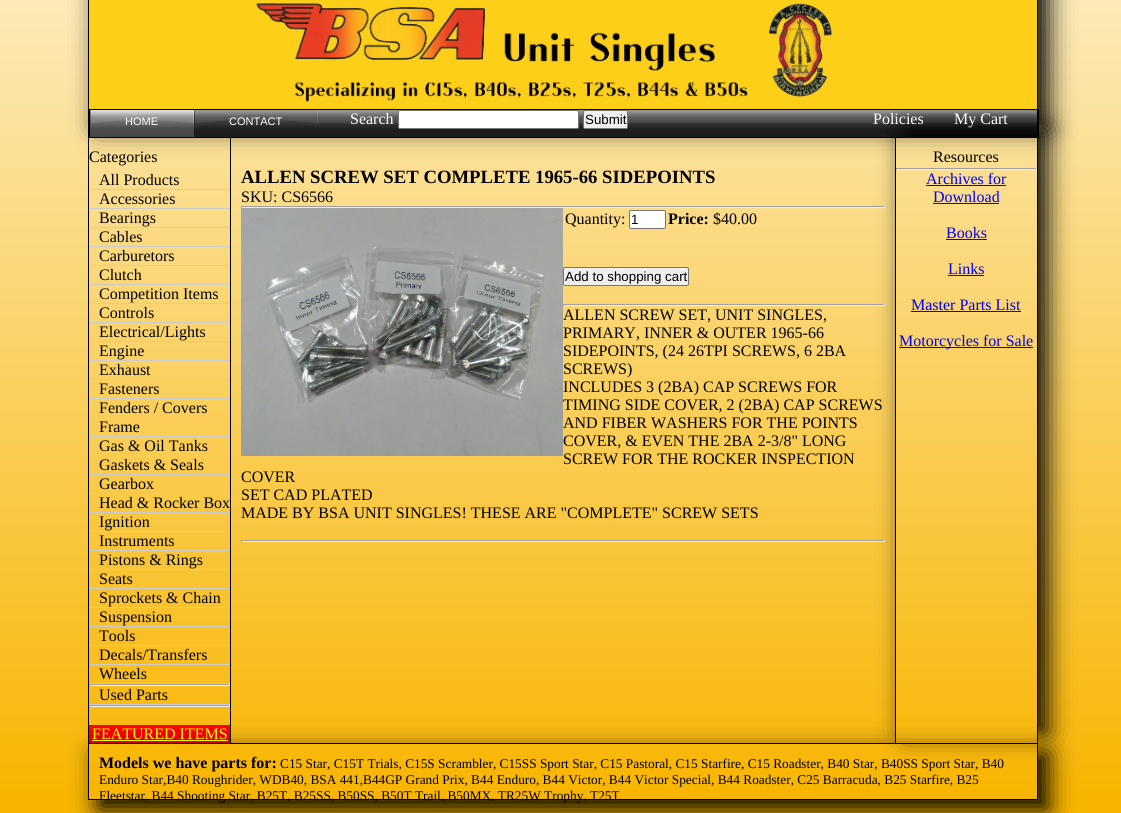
#include <cairo.h>
#include <math.h>
#include <stddef.h>


static void set_color(cairo_t *cr, unsigned color) {
    cairo_set_source_rgb(cr, (color >> 16) / 255.0, (color >> 8 & 255) / 255.0, (color & 255) / 255.0);
}

static void draw_text(cairo_t *cr, double x, double y, const char *s, const char *family, double size, int italic, int bold, unsigned color) {
    cairo_select_font_face(cr, family, italic ? CAIRO_FONT_SLANT_ITALIC : CAIRO_FONT_SLANT_NORMAL,
        bold ? CAIRO_FONT_WEIGHT_BOLD : CAIRO_FONT_WEIGHT_NORMAL);
    cairo_set_font_size(cr, size);
    set_color(cr, color);
    cairo_move_to(cr, x, y);
    cairo_show_text(cr, s);
}

static void fill_rect(cairo_t *cr, double x, double y, double w, double h, unsigned color) {
    set_color(cr, color);
    cairo_rectangle(cr, x, y, w, h);
    cairo_fill(cr);
}

static void rounded_rect(cairo_t *cr, double x, double y, double w, double h, double r) {
    cairo_new_sub_path(cr);
    cairo_arc(cr, x + w - r, y + h - r, r, 0, M_PI / 2);
    cairo_arc(cr, x + r, y + h - r, r, M_PI / 2, M_PI);
    cairo_arc(cr, x + r, y + r, r, M_PI, 1.5 * M_PI);
    cairo_arc(cr, x + w - r, y + r, r, 1.5 * M_PI, 2 * M_PI);
    cairo_close_path(cr);
}

static void draw_shadow(cairo_t *cr, double x, double y, double w, double h, double r, double blur, double alpha) {
    cairo_push_group_with_content(cr, CAIRO_CONTENT_ALPHA);
    cairo_set_operator(cr, CAIRO_OPERATOR_SOURCE);
    for (int i = 15; i >= -15 && fmin(w, h) + blur * i / 3 > 0; i -= 2) {
        double e = blur * i / 6;
        cairo_set_source_rgba(cr, 0, 0, 0, alpha * erfc((i - 1) / 8.5) / 2);
        rounded_rect(cr, x - e, y - e, w + 2 * e, h + 2 * e, fmax(0, fmin(r + e + blur * .6, fmin(w, h) / 2 + e)));
        cairo_fill(cr);
    }
    cairo_pattern_t *soft = cairo_pop_group(cr);
    cairo_mask(cr, soft);
    cairo_pattern_destroy(soft);
}

static void draw_image(cairo_t *cr, const char *path, double x, double y, double w, double h) {
    cairo_surface_t *image = cairo_image_surface_create_from_png(path);
    cairo_save(cr);
    cairo_set_source_surface(cr, image, x, y);
    cairo_rectangle(cr, x, y, w, h);
    cairo_fill(cr);
    cairo_restore(cr);
    cairo_surface_destroy(image);
}

int main(void) {
    cairo_surface_t *surface = cairo_image_surface_create(CAIRO_FORMAT_RGB24, 1121, 813);
    cairo_t *cr = cairo_create(surface);
    cairo_font_options_t *options = cairo_font_options_create();
    cairo_font_options_set_hint_metrics(options, CAIRO_HINT_METRICS_OFF);
    cairo_font_options_set_hint_style(options, CAIRO_HINT_STYLE_NONE);
    cairo_set_font_options(cr, options);
    cairo_set_miter_limit(cr, 4);
    cairo_pattern_t *gradient;
    set_color(cr, 0xF8B500);
    cairo_paint(cr);
    gradient = cairo_pattern_create_linear(561, -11, 561, 800);
    cairo_pattern_add_color_stop_rgba(gradient, 0, 0.988, 0.918, 0.733, 1);
    cairo_pattern_add_color_stop_rgba(gradient, 1, 0.973, 0.71, 0, 1);
    cairo_set_source(cr, gradient);
    cairo_pattern_destroy(gradient);
    cairo_rectangle(cr, 0, 0, 1121, 789);
    cairo_fill(cr);
    set_color(cr, 0x000000);
    draw_shadow(cr, 98, -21, 950, 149, 0, 12.5, 1);
    draw_image(cr, "assets/img2.png", 194, 110, 843, 27);
    cairo_rectangle(cr, 89.5, 109.5, 949, 28);
    set_color(cr, 0x000000);
    cairo_set_line_width(cr, 1);
    cairo_stroke(cr);
    fill_rect(cr, 1037, 0, 1, 138, 0x000000);
    fill_rect(cr, 88, 0, 1, 743, 0x000000);
    cairo_save(cr);
    cairo_set_fill_rule(cr, CAIRO_FILL_RULE_EVEN_ODD);
    cairo_new_path(cr);
    cairo_move_to(cr, 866, 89);
    cairo_line_to(cr, 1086, 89);
    cairo_line_to(cr, 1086, 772);
    cairo_line_to(cr, 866, 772);
    cairo_close_path(cr);
    cairo_move_to(cr, 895, 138);
    cairo_line_to(cr, 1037, 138);
    cairo_line_to(cr, 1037, 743);
    cairo_line_to(cr, 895, 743);
    cairo_close_path(cr);
    cairo_clip(cr);
    set_color(cr, 0x000000);
    draw_shadow(cr, 905, 128, 142, 605, 0, 12.5, 1);
    cairo_restore(cr);
    draw_image(cr, "assets/img1.png", 89, 0, 948, 109);
    draw_image(cr, "assets/img3.png", 90, 110, 104, 27);
    draw_image(cr, "assets/img4.png", 125, 110, 69, 14);
    draw_text(cr, 125, 125, "HOME", "Liberation Sans", 11, 0, 0, 0xFFFFFF);
    draw_image(cr, "assets/img5.png", 194, 110, 35, 14);
    draw_image(cr, "assets/img6.png", 229, 110, 89, 14);
    draw_text(cr, 229, 125, "CONTACT", "Liberation Sans", 11, 0, 0, 0xFFFFFF);
    draw_text(cr, 350, 124, "Search", "Liberation Serif", 16, 0, 0, 0xFFFFFF);
    rounded_rect(cr, 398.5, 110.5, 180, 18, 1.5);
    cairo_fill_preserve(cr);
    set_color(cr, 0x767676);
    cairo_stroke(cr);
    set_color(cr, 0xEFEFEF);
    rounded_rect(cr, 583.5, 110.5, 44, 18, 1.5);
    cairo_fill_preserve(cr);
    set_color(cr, 0x767676);
    cairo_stroke(cr);
    draw_text(cr, 585, 124, "Submit", "Liberation Sans", 13.33, 0, 0, 0x000000);
    draw_text(cr, 873, 124, "Policies", "Liberation Serif", 16, 0, 0, 0xFFFFFF);
    draw_text(cr, 954, 124, "My Cart", "Liberation Serif", 16, 0, 0, 0xFFFFFF);
    fill_rect(cr, 230, 137, 1, 606, 0x000000);
    draw_text(cr, 89, 162, "Categories", "Liberation Serif", 16, 0, 0, 0x000000);
    fill_rect(cr, 89, 189, 141, 1, 0xCCCCCC);
    draw_text(cr, 99, 185, "All Products", "Liberation Serif", 16, 0, 0, 0x000000);
    fill_rect(cr, 89, 208, 141, 1, 0xCCCCCC);
    draw_text(cr, 99, 204, "Accessories", "Liberation Serif", 16, 0, 0, 0x000000);
    fill_rect(cr, 89, 227, 141, 1, 0xCCCCCC);
    draw_text(cr, 99, 223, "Bearings", "Liberation Serif", 16, 0, 0, 0x000000);
    fill_rect(cr, 89, 246, 141, 1, 0xCCCCCC);
    draw_text(cr, 99, 242, "Cables", "Liberation Serif", 16, 0, 0, 0x000000);
    fill_rect(cr, 89, 265, 141, 1, 0xCCCCCC);
    draw_text(cr, 99, 261, "Carburetors", "Liberation Serif", 16, 0, 0, 0x000000);
    fill_rect(cr, 89, 284, 141, 1, 0xCCCCCC);
    draw_text(cr, 99, 280, "Clutch", "Liberation Serif", 16, 0, 0, 0x000000);
    fill_rect(cr, 89, 303, 141, 1, 0xCCCCCC);
    draw_text(cr, 99, 299, "Competition Items", "Liberation Serif", 16, 0, 0, 0x000000);
    fill_rect(cr, 89, 322, 141, 1, 0xCCCCCC);
    draw_text(cr, 99, 318, "Controls", "Liberation Serif", 16, 0, 0, 0x000000);
    fill_rect(cr, 89, 341, 141, 1, 0xCCCCCC);
    draw_text(cr, 99, 337, "Electrical/Lights", "Liberation Serif", 16, 0, 0, 0x000000);
    fill_rect(cr, 89, 360, 141, 1, 0xCCCCCC);
    draw_text(cr, 99, 356, "Engine", "Liberation Serif", 16, 0, 0, 0x000000);
    fill_rect(cr, 89, 379, 141, 1, 0xCCCCCC);
    draw_text(cr, 99, 375, "Exhaust", "Liberation Serif", 16, 0, 0, 0x000000);
    fill_rect(cr, 89, 398, 141, 1, 0xCCCCCC);
    draw_text(cr, 99, 394, "Fasteners", "Liberation Serif", 16, 0, 0, 0x000000);
    fill_rect(cr, 89, 417, 141, 1, 0xCCCCCC);
    draw_text(cr, 99, 413, "Fenders / Covers", "Liberation Serif", 16, 0, 0, 0x000000);
    fill_rect(cr, 89, 436, 141, 1, 0xCCCCCC);
    draw_text(cr, 99, 432, "Frame", "Liberation Serif", 16, 0, 0, 0x000000);
    fill_rect(cr, 89, 455, 141, 1, 0xCCCCCC);
    draw_text(cr, 99, 451, "Gas & Oil Tanks", "Liberation Serif", 16, 0, 0, 0x000000);
    fill_rect(cr, 89, 474, 141, 1, 0xCCCCCC);
    draw_text(cr, 99, 470, "Gaskets & Seals", "Liberation Serif", 16, 0, 0, 0x000000);
    fill_rect(cr, 89, 493, 141, 1, 0xCCCCCC);
    draw_text(cr, 99, 489, "Gearbox", "Liberation Serif", 16, 0, 0, 0x000000);
    fill_rect(cr, 89, 512, 141, 1, 0xCCCCCC);
    draw_text(cr, 99, 508, "Head & Rocker Box", "Liberation Serif", 16, 0, 0, 0x000000);
    fill_rect(cr, 89, 531, 141, 1, 0xCCCCCC);
    draw_text(cr, 99, 527, "Ignition", "Liberation Serif", 16, 0, 0, 0x000000);
    fill_rect(cr, 89, 550, 141, 1, 0xCCCCCC);
    draw_text(cr, 99, 546, "Instruments", "Liberation Serif", 16, 0, 0, 0x000000);
    fill_rect(cr, 89, 569, 141, 1, 0xCCCCCC);
    draw_text(cr, 99, 565, "Pistons & Rings", "Liberation Serif", 16, 0, 0, 0x000000);
    fill_rect(cr, 89, 588, 141, 1, 0xCCCCCC);
    draw_text(cr, 99, 584, "Seats", "Liberation Serif", 16, 0, 0, 0x000000);
    fill_rect(cr, 89, 607, 141, 1, 0xCCCCCC);
    draw_text(cr, 99, 603, "Sprockets & Chain", "Liberation Serif", 16, 0, 0, 0x000000);
    fill_rect(cr, 89, 626, 141, 1, 0xCCCCCC);
    draw_text(cr, 99, 622, "Suspension", "Liberation Serif", 16, 0, 0, 0x000000);
    fill_rect(cr, 89, 645, 141, 1, 0xCCCCCC);
    draw_text(cr, 99, 641, "Tools", "Liberation Serif", 16, 0, 0, 0x000000);
    fill_rect(cr, 89, 664, 141, 1, 0xCCCCCC);
    draw_text(cr, 99, 660, "Decals/Transfers", "Liberation Serif", 16, 0, 0, 0x000000);
    fill_rect(cr, 89, 683, 141, 1, 0xCCCCCC);
    draw_text(cr, 99, 679, "Wheels", "Liberation Serif", 16, 0, 0, 0x000000);
    fill_rect(cr, 89, 684, 141, 1, 0x9F9F9F);
    fill_rect(cr, 229, 684, 1, 2, 0xEEEEEE);
    fill_rect(cr, 89, 685, 141, 1, 0xEEEEEE);
    fill_rect(cr, 89, 684, 1, 2, 0x9F9F9F);
    fill_rect(cr, 89, 704, 141, 1, 0xCCCCCC);
    draw_text(cr, 99, 700, "Used Parts", "Liberation Serif", 16, 0, 0, 0x000000);
    fill_rect(cr, 89, 705, 141, 1, 0x9F9F9F);
    fill_rect(cr, 229, 705, 1, 2, 0xEEEEEE);
    fill_rect(cr, 89, 706, 141, 1, 0xEEEEEE);
    fill_rect(cr, 89, 705, 1, 2, 0x9F9F9F);
    fill_rect(cr, 89, 725, 141, 18, 0xFF0000);
    fill_rect(cr, 1037, 137, 1, 606, 0x000000);
    fill_rect(cr, 895, 137, 1, 606, 0x000000);
    cairo_save(cr);
    cairo_set_fill_rule(cr, CAIRO_FILL_RULE_EVEN_ODD);
    cairo_new_path(cr);
    cairo_move_to(cr, 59, 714);
    cairo_line_to(cr, 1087, 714);
    cairo_line_to(cr, 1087, 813);
    cairo_line_to(cr, 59, 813);
    cairo_close_path(cr);
    cairo_move_to(cr, 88, 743);
    cairo_line_to(cr, 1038, 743);
    cairo_line_to(cr, 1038, 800);
    cairo_line_to(cr, 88, 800);
    cairo_close_path(cr);
    cairo_clip(cr);
    set_color(cr, 0x000000);
    draw_shadow(cr, 98, 753, 950, 57, 0, 12.5, 1);
    cairo_restore(cr);
    draw_text(cr, 92, 739, "FEATURED ITEMS", "Liberation Serif", 16, 0, 0, 0xFFFF00);
    fill_rect(cr, 92, 740, 136, 1, 0xFFFF00);
    draw_text(cr, 241, 183, "ALLEN SCREW SET COMPLETE 1965-66 SIDEPOINTS", "Liberation Serif", 18.7, 0, 1, 0x000000);
    draw_text(cr, 241, 202, "SKU: CS6566", "Liberation Serif", 16, 0, 0, 0x000000);
    fill_rect(cr, 241, 206, 644, 1, 0x9F9F9F);
    fill_rect(cr, 884, 206, 1, 2, 0xEEEEEE);
    fill_rect(cr, 241, 207, 644, 1, 0xEEEEEE);
    fill_rect(cr, 241, 206, 1, 2, 0x9F9F9F);
    draw_image(cr, "assets/img7.png", 241, 208, 322, 248);
    draw_text(cr, 565, 224, "Quantity:", "Liberation Serif", 16, 0, 0, 0x000000);
    set_color(cr, 0xFFFFFF);
    rounded_rect(cr, 629.5, 210.5, 36, 18, 1.5);
    cairo_fill_preserve(cr);
    set_color(cr, 0x767676);
    cairo_stroke(cr);
    draw_text(cr, 631, 224, "1", "Liberation Sans", 13.33, 0, 0, 0x000000);
    draw_text(cr, 668, 224, "Price:", "Liberation Serif", 16, 0, 1, 0x000000);
    draw_text(cr, 713, 224, "$40.00", "Liberation Serif", 16, 0, 0, 0x000000);
    set_color(cr, 0xEFEFEF);
    rounded_rect(cr, 563.5, 267.5, 125, 18, 1.5);
    cairo_fill_preserve(cr);
    set_color(cr, 0x767676);
    cairo_stroke(cr);
    draw_text(cr, 565, 281, "Add to shopping cart", "Liberation Sans", 13.33, 0, 0, 0x000000);
    fill_rect(cr, 563, 304, 322, 1, 0x9F9F9F);
    fill_rect(cr, 884, 304, 1, 2, 0xEEEEEE);
    fill_rect(cr, 563, 305, 322, 1, 0xEEEEEE);
    fill_rect(cr, 563, 304, 1, 2, 0x9F9F9F);
    draw_text(cr, 563, 320, "ALLEN SCREW SET, UNIT SINGLES,", "Liberation Serif", 16, 0, 0, 0x000000);
    draw_text(cr, 563, 338, "PRIMARY, INNER & OUTER 1965-66", "Liberation Serif", 16, 0, 0, 0x000000);
    draw_text(cr, 563, 356, "SIDEPOINTS, (24 26TPI SCREWS, 6 2BA", "Liberation Serif", 16, 0, 0, 0x000000);
    draw_text(cr, 563, 374, "SCREWS)", "Liberation Serif", 16, 0, 0, 0x000000);
    draw_text(cr, 563, 392, "INCLUDES 3 (2BA) CAP SCREWS FOR", "Liberation Serif", 16, 0, 0, 0x000000);
    draw_text(cr, 563, 410, "TIMING SIDE COVER, 2 (2BA) CAP SCREWS", "Liberation Serif", 16, 0, 0, 0x000000);
    draw_text(cr, 563, 428, "AND FIBER WASHERS FOR THE POINTS", "Liberation Serif", 16, 0, 0, 0x000000);
    draw_text(cr, 563, 446, "COVER, & EVEN THE 2BA 2-3/8\" LONG", "Liberation Serif", 16, 0, 0, 0x000000);
    draw_text(cr, 563, 464, "SCREW FOR THE ROCKER INSPECTION", "Liberation Serif", 16, 0, 0, 0x000000);
    draw_text(cr, 241, 482, "COVER", "Liberation Serif", 16, 0, 0, 0x000000);
    draw_text(cr, 241, 500, "SET CAD PLATED", "Liberation Serif", 16, 0, 0, 0x000000);
    draw_text(cr, 241, 518, "MADE BY BSA UNIT SINGLES! THESE ARE \"COMPLETE\" SCREW SETS", "Liberation Serif", 16, 0, 0, 0x000000);
    fill_rect(cr, 241, 540, 644, 1, 0x9F9F9F);
    fill_rect(cr, 884, 540, 1, 2, 0xEEEEEE);
    fill_rect(cr, 241, 541, 644, 1, 0xEEEEEE);
    fill_rect(cr, 241, 540, 1, 2, 0x9F9F9F);
    draw_text(cr, 933, 162, "Resources", "Liberation Serif", 16, 0, 0, 0x000000);
    fill_rect(cr, 896, 168, 141, 1, 0x9F9F9F);
    fill_rect(cr, 1036, 168, 1, 2, 0xEEEEEE);
    fill_rect(cr, 896, 169, 141, 1, 0xEEEEEE);
    fill_rect(cr, 896, 168, 1, 2, 0x9F9F9F);
    draw_text(cr, 926, 184, "Archives for", "Liberation Serif", 16, 0, 0, 0x0000EE);
    fill_rect(cr, 926, 185, 80, 1, 0x0000EE);
    draw_text(cr, 933, 202, "Download", "Liberation Serif", 16, 0, 0, 0x0000EE);
    fill_rect(cr, 933, 203, 66, 1, 0x0000EE);
    draw_text(cr, 946, 238, "Books", "Liberation Serif", 16, 0, 0, 0x0000EE);
    fill_rect(cr, 946, 239, 41, 1, 0x0000EE);
    draw_text(cr, 948, 274, "Links", "Liberation Serif", 16, 0, 0, 0x0000EE);
    fill_rect(cr, 948, 275, 36, 1, 0x0000EE);
    draw_text(cr, 911, 310, "Master Parts List", "Liberation Serif", 16, 0, 0, 0x0000EE);
    fill_rect(cr, 911, 311, 110, 1, 0x0000EE);
    fill_rect(cr, 899, 347, 134, 1, 0x0000EE);
    draw_text(cr, 899, 346, "Motorcycles for Sale", "Liberation Serif", 16, 0, 0, 0x0000EE);
    cairo_rectangle(cr, 88.5, 743.5, 949, 56);
    set_color(cr, 0x000000);
    cairo_stroke(cr);
    draw_text(cr, 99, 768, "Models we have parts for:", "Liberation Serif", 16, 0, 1, 0x000000);
    draw_text(cr, 280, 768, "C15 Star, C15T Trials, C15S Scrambler, C15SS Sport Star, C15 Pastoral, C15 Starfire, C15 Roadster, B40 Star, B40SS Sport Star, B40", "Liberation Serif", 13.33, 0, 0, 0x000000);
    draw_text(cr, 99, 784, "Enduro Star,B40 Roughrider, WDB40, BSA 441,B44GP Grand Prix, B44 Enduro, B44 Victor, B44 Victor Special, B44 Roadster, C25 Barracuda, B25 Starfire, B25", "Liberation Serif", 13.33, 0, 0, 0x000000);
    draw_text(cr, 99, 800, "Fleetstar, B44 Shooting Star, B25T, B25SS, B50SS, B50T Trail, B50MX, TR25W Trophy, T25T", "Liberation Serif", 13.33, 0, 0, 0x000000);
    cairo_surface_write_to_png(surface, "output.png");
    cairo_font_options_destroy(options);
    cairo_destroy(cr);
    cairo_surface_destroy(surface);
    return 0;
}
